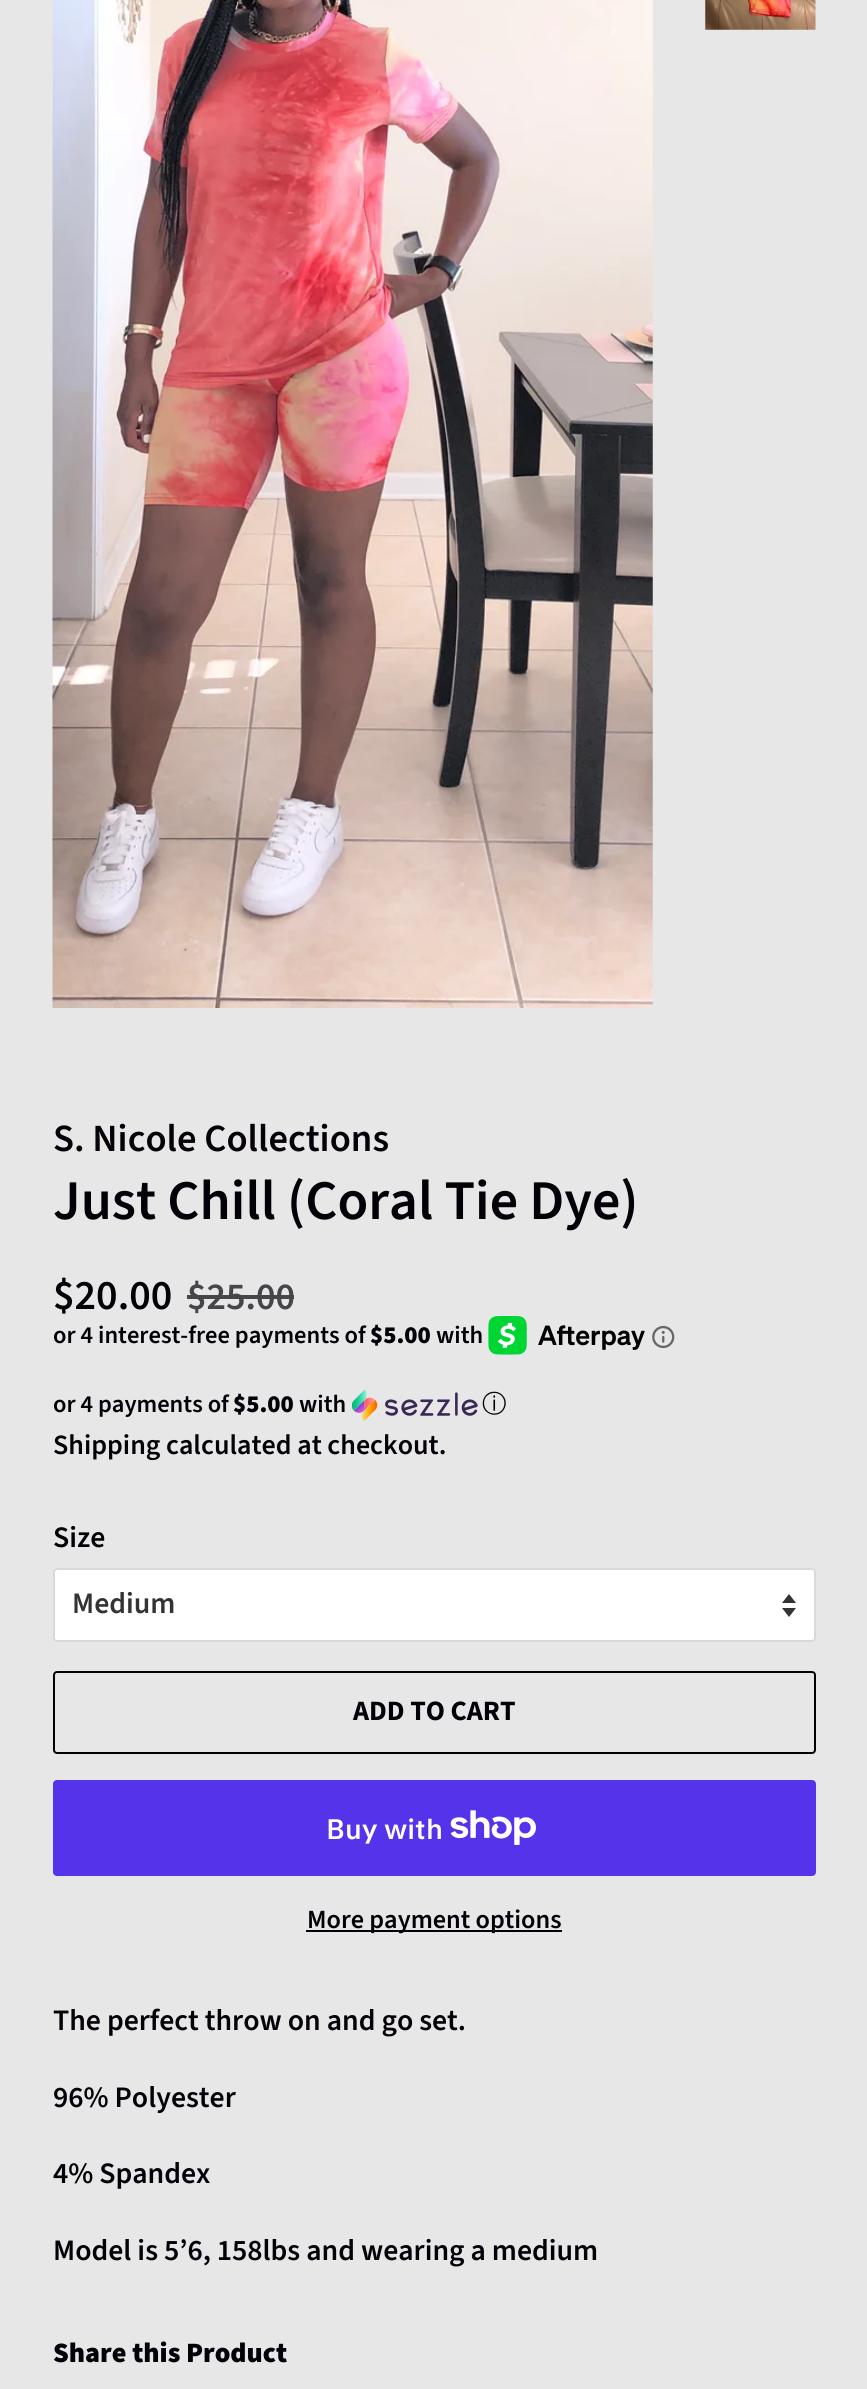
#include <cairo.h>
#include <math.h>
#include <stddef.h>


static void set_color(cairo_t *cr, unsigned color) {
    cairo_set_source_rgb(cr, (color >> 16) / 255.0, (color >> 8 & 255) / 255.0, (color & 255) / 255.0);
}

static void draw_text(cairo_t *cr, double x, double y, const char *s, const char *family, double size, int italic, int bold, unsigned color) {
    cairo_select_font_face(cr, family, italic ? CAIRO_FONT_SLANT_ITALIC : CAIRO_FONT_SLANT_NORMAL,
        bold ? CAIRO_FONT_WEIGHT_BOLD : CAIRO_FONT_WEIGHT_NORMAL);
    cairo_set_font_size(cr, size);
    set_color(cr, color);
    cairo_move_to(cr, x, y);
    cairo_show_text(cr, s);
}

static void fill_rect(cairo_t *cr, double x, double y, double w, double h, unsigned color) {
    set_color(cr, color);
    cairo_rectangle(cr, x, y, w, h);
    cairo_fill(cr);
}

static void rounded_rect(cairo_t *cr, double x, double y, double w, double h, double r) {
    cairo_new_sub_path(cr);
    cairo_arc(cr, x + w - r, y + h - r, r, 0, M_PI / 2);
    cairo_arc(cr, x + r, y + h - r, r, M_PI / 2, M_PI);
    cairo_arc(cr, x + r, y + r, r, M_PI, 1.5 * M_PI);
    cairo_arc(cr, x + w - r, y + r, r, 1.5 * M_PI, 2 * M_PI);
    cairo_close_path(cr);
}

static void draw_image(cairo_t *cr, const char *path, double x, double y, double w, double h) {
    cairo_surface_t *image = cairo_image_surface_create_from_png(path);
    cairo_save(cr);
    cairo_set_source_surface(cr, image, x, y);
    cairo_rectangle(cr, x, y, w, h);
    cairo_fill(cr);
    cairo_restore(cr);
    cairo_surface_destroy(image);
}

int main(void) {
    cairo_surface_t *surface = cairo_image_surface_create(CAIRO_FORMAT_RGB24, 867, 2389);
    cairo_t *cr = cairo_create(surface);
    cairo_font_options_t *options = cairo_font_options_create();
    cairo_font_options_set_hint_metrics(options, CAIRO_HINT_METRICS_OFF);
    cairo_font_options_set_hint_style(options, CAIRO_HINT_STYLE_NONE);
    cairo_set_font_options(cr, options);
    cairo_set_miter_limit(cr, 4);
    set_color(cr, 0xE7E7E7);
    cairo_paint(cr);
    draw_image(cr, "assets/img1.png", 52, 0, 601, 1008);
    draw_image(cr, "assets/img2.png", 705, 0, 111, 30);
    draw_text(cr, 53, 1151, "S. Nicole Collections", "Source Sans Pro SemiBold", 38.5, 0, 0, 0x040007);
    draw_text(cr, 53, 1219, "Just Chill (Coral Tie Dye)", "Source Sans Pro SemiBold", 56, 0, 0, 0x040007);
    draw_text(cr, 53, 1309, "$20.00", "Source Sans Pro SemiBold", 42, 0, 0, 0x040007);
    draw_text(cr, 187, 1309, "$25.00", "Source Sans Pro SemiBold", 38, 0, 0, 0x48454A);
    fill_rect(cr, 187, 1295, 107, 4, 0x48454A);
    draw_text(cr, 53, 1343, "or 4 interest-free payments of", "Source Sans Pro SemiBold", 24.5, 0, 0, 0x040007);
    draw_text(cr, 370, 1343, "$5.00", "Source Sans Pro Black", 24.5, 0, 0, 0x040007);
    draw_text(cr, 436, 1343, "with", "Source Sans Pro SemiBold", 24.5, 0, 0, 0x040007);
    draw_image(cr, "assets/img3.png", 488, 1316, 157, 39);
    draw_image(cr, "assets/img4.png", 652, 1325, 23, 24);
    draw_text(cr, 53, 1412, "or 4 payments of", "Source Sans Pro SemiBold", 24.5, 0, 0, 0x040007);
    draw_text(cr, 233, 1412, "$5.00", "Source Sans Pro Black", 24.5, 0, 0, 0x040007);
    draw_text(cr, 299, 1412, "with", "Source Sans Pro SemiBold", 24.5, 0, 0, 0x040007);
    draw_image(cr, "assets/img5.png", 352, 1390, 126, 31);
    draw_text(cr, 482, 1412, "ⓘ", "WenQuanYi Zen Hei Medium", 24.5, 0, 0, 0x040007);
    draw_text(cr, 53, 1454, "Shipping calculated at checkout.", "Source Sans Pro SemiBold", 28, 0, 0, 0x040007);
    draw_text(cr, 53, 1547, "Size", "Source Sans Pro SemiBold", 29.75, 0, 0, 0x040007);
    set_color(cr, 0xFFFFFF);
    rounded_rect(cr, 53, 1568, 763, 74, 4);
    cairo_fill(cr);
    set_color(cr, 0x333333);
    cairo_new_path(cr);
    cairo_move_to(cr, 782, 1608);
    cairo_line_to(cr, 789, 1617);
    cairo_line_to(cr, 796, 1608);
    cairo_close_path(cr);
    cairo_move_to(cr, 789, 1594);
    cairo_line_to(cr, 782, 1603);
    cairo_line_to(cr, 796, 1603);
    cairo_close_path(cr);
    cairo_fill(cr);
    rounded_rect(cr, 54, 1569, 761, 72, 3);
    cairo_set_source_rgba(cr, 0.016, 0, 0.027, 0.15);
    cairo_stroke(cr);
    draw_text(cr, 72, 1613, "Medium", "Source Sans Pro SemiBold", 29.75, 0, 0, 0x333333);
    rounded_rect(cr, 54, 1672, 761, 81, 3);
    set_color(cr, 0x040007);
    cairo_stroke(cr);
    draw_text(cr, 353, 1720, "ADD TO CART", "Source Sans Pro", 28, 0, 1, 0x040007);
    set_color(cr, 0x5433EB);
    rounded_rect(cr, 53, 1780, 763, 96, 4);
    cairo_fill(cr);
    draw_text(cr, 326, 1839, "Buy with", "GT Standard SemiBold", 28, 0, 0, 0xFFFFFF);
    draw_image(cr, "assets/img6.png", 450, 1810, 86, 35);
    fill_rect(cr, 306, 1930, 256, 2, 0x040007);
    draw_text(cr, 307, 1928, "More payment options", "Source Sans Pro SemiBold", 26.25, 0, 0, 0x040007);
    draw_text(cr, 53, 2030, "The perfect throw on and go set.", "Source Sans Pro SemiBold", 29.75, 0, 0, 0x040007);
    draw_text(cr, 53, 2107, "96% Polyester", "Source Sans Pro SemiBold", 29.75, 0, 0, 0x040007);
    draw_text(cr, 53, 2183, "4% Spandex", "Source Sans Pro SemiBold", 29.75, 0, 0, 0x040007);
    draw_text(cr, 53, 2260, "Model is 5’6, 158lbs and wearing a medium", "Source Sans Pro SemiBold", 29.75, 0, 0, 0x040007);
    draw_text(cr, 53, 2362, "Share this Product", "Source Sans Pro Black", 28, 0, 0, 0x040007);
    cairo_surface_write_to_png(surface, "output.png");
    cairo_font_options_destroy(options);
    cairo_destroy(cr);
    cairo_surface_destroy(surface);
    return 0;
}
